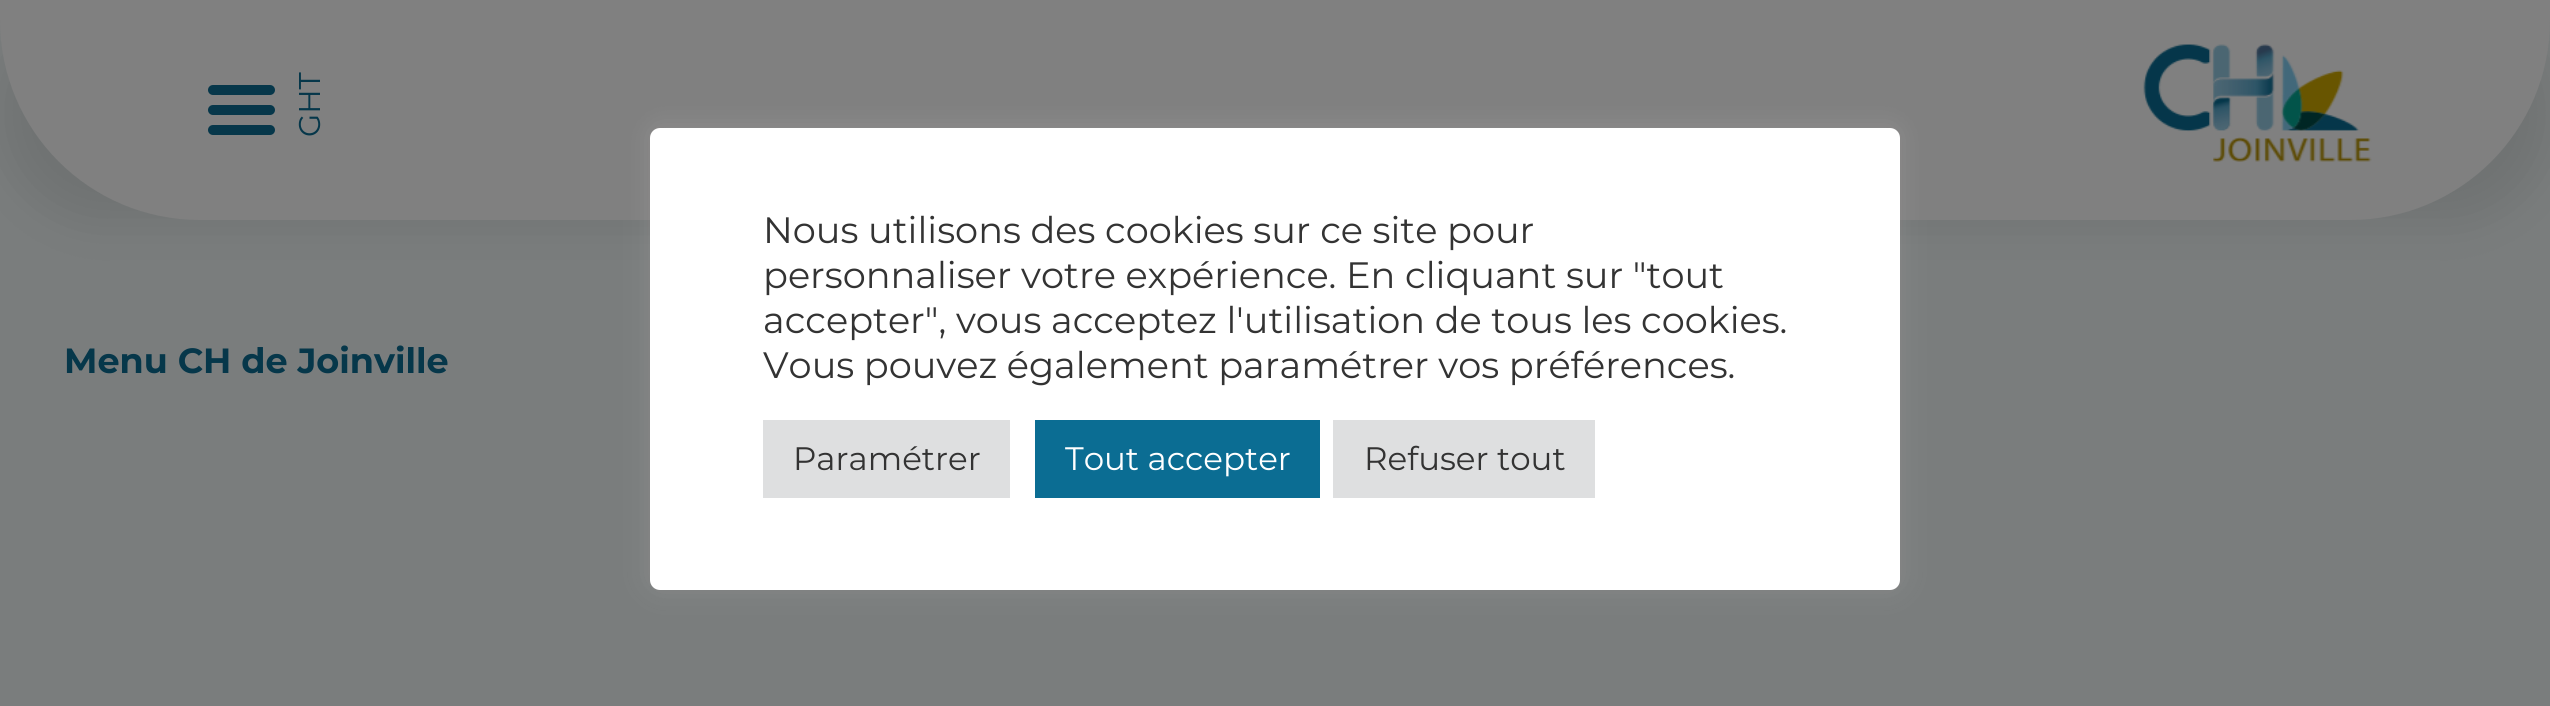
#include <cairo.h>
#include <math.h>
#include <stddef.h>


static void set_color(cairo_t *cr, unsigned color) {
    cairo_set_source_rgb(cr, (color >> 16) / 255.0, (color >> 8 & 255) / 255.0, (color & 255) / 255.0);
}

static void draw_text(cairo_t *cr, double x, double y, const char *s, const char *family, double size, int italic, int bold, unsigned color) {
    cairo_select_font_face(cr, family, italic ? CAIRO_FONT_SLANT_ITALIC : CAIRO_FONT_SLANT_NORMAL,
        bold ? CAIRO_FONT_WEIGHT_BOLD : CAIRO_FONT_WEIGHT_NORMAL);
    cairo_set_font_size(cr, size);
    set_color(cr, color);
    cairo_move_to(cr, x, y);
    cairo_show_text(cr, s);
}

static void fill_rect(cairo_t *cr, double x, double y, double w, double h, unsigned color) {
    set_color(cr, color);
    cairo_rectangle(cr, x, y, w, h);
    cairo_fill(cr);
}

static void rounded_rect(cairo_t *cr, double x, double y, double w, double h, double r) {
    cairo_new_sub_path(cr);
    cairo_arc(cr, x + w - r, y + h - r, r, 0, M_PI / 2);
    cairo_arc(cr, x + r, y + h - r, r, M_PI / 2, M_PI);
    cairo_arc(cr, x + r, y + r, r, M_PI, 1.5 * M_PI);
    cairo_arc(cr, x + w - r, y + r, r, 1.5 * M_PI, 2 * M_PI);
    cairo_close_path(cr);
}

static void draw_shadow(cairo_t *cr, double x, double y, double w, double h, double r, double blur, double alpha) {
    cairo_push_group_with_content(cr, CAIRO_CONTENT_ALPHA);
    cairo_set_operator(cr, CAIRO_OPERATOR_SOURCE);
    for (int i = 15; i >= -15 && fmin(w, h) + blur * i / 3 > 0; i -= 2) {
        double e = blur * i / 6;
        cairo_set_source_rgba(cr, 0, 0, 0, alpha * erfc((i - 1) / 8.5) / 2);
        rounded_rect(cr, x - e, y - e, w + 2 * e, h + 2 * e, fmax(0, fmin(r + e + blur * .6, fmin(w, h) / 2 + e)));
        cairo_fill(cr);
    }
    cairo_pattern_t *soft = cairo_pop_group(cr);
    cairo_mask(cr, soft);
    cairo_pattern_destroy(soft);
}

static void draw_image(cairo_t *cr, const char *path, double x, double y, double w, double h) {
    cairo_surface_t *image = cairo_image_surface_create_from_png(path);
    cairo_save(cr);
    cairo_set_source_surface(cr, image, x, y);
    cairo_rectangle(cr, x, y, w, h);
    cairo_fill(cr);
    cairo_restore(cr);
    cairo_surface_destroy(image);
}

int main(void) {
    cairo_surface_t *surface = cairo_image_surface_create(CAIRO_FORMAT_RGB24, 2550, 706);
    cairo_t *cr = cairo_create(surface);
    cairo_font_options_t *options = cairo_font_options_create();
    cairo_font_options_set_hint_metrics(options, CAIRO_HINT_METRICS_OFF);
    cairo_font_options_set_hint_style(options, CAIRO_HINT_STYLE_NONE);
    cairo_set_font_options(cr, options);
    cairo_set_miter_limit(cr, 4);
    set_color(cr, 0x7A7D7D);
    cairo_paint(cr);
    set_color(cr, 0x000000);
    draw_shadow(cr, 0, 3, 2550, 220, 200, 25, 0.09);
    set_color(cr, 0x808080);
    cairo_new_path(cr);
    cairo_move_to(cr, 0, 0);
    cairo_line_to(cr, 2550, 0);
    cairo_line_to(cr, 2550, 20);
    cairo_curve_to(cr, 2550, 130.5, 2460.5, 220, 2350, 220);
    cairo_line_to(cr, 200, 220);
    cairo_curve_to(cr, 89.5, 220, 0, 130.5, 0, 20);
    cairo_close_path(cr);
    cairo_fill(cr);
    set_color(cr, 0x06374A);
    rounded_rect(cr, 208, 85, 67, 10, 5);
    cairo_fill(cr);
    rounded_rect(cr, 208, 105, 67, 10, 5);
    cairo_fill(cr);
    rounded_rect(cr, 208, 125, 67, 10, 5);
    cairo_fill(cr);
    cairo_save(cr);
    cairo_translate(cr, 320, 137);
    cairo_rotate(cr, -90 * M_PI / 180);
    draw_text(cr, 0, 0, "GHT", "Montserrat", 30, 0, 0, 0x06374A);
    cairo_restore(cr);
    draw_image(cr, "assets/img1.png", 2143, 44, 229, 118);
    draw_text(cr, 64, 373, "Menu CH de Joinville", "Montserrat", 35, 0, 1, 0x06374A);
    set_color(cr, 0xACABAB);
    draw_shadow(cr, 650, 125, 1250, 463, 10, 12.5, 0.3);
    set_color(cr, 0xFFFFFF);
    rounded_rect(cr, 650, 128, 1250, 462, 10);
    cairo_fill(cr);
    draw_text(cr, 763, 243, "Nous utilisons des cookies sur ce site pour", "Montserrat", 36.7, 0, 0, 0x333333);
    draw_text(cr, 763, 288, "personnaliser votre expérience. En cliquant sur \"tout", "Montserrat", 36.7, 0, 0, 0x333333);
    draw_text(cr, 763, 333, "accepter\", vous acceptez l'utilisation de tous les cookies.", "Montserrat", 36.7, 0, 0, 0x333333);
    draw_text(cr, 763, 378, "Vous pouvez également paramétrer vos préférences.", "Montserrat", 36.7, 0, 0, 0x333333);
    fill_rect(cr, 763, 420, 247, 78, 0xDEDFE0);
    draw_text(cr, 793, 470, "Paramétrer", "Montserrat", 32.5, 0, 0, 0x333333);
    fill_rect(cr, 1035, 420, 285, 78, 0x0B6D93);
    draw_text(cr, 1065, 470, "Tout accepter", "Montserrat", 32.5, 0, 0, 0xFFFFFF);
    fill_rect(cr, 1333, 420, 262, 78, 0xDEDFE0);
    draw_text(cr, 1364, 470, "Refuser tout", "Montserrat", 32.5, 0, 0, 0x333333);
    cairo_surface_write_to_png(surface, "output.png");
    cairo_font_options_destroy(options);
    cairo_destroy(cr);
    cairo_surface_destroy(surface);
    return 0;
}
